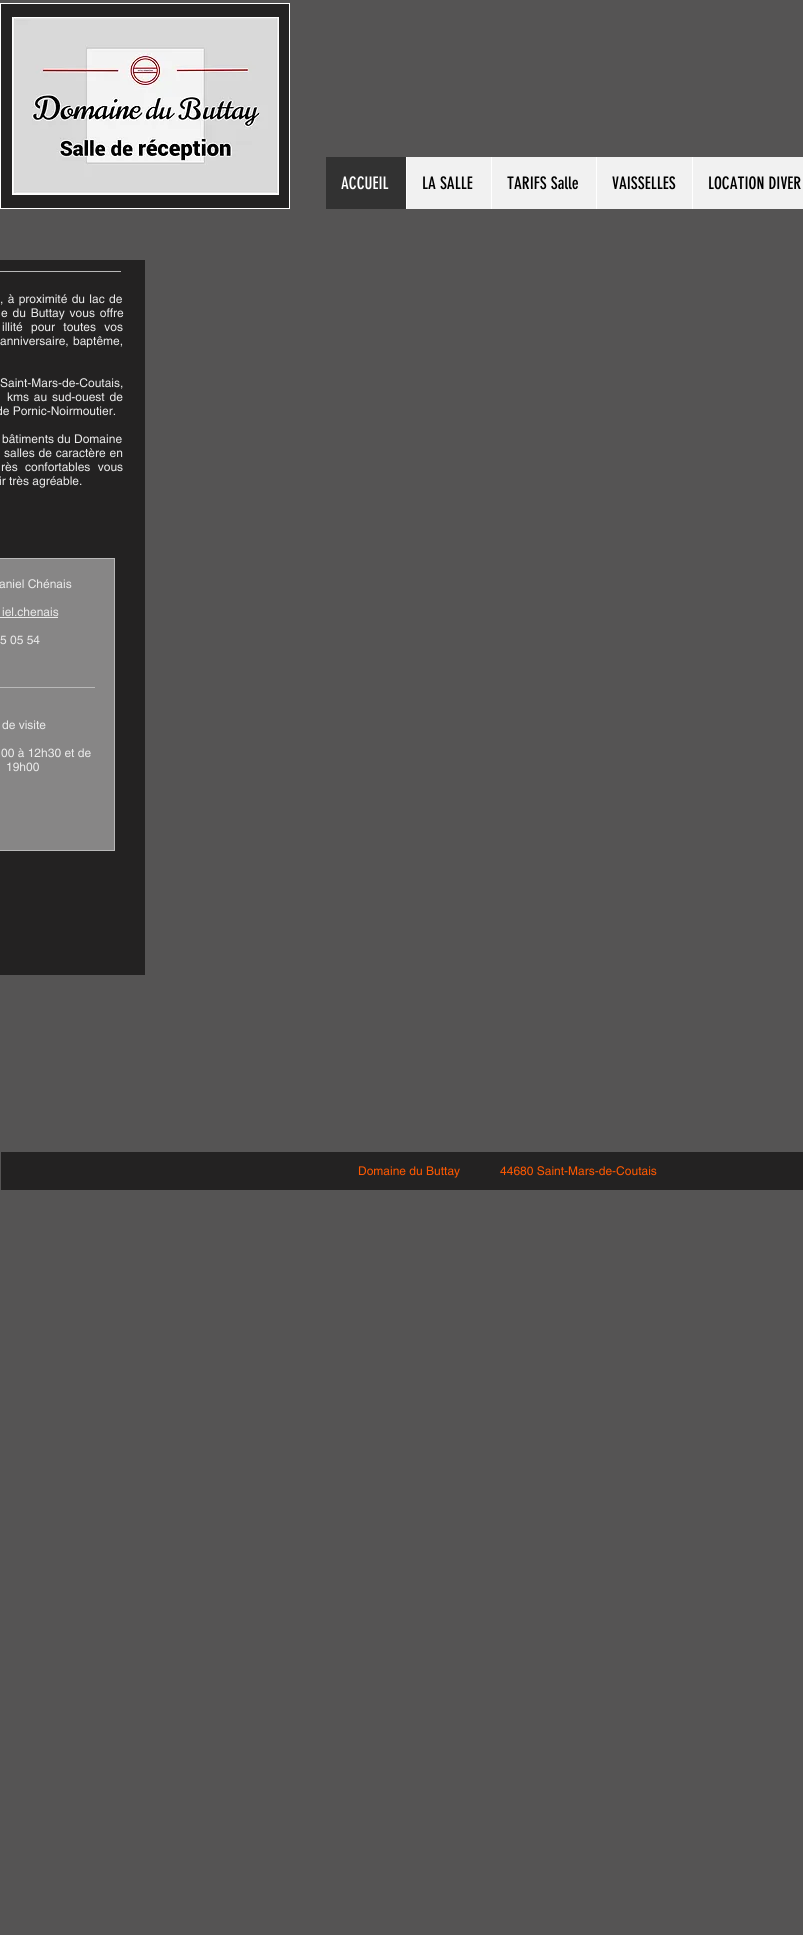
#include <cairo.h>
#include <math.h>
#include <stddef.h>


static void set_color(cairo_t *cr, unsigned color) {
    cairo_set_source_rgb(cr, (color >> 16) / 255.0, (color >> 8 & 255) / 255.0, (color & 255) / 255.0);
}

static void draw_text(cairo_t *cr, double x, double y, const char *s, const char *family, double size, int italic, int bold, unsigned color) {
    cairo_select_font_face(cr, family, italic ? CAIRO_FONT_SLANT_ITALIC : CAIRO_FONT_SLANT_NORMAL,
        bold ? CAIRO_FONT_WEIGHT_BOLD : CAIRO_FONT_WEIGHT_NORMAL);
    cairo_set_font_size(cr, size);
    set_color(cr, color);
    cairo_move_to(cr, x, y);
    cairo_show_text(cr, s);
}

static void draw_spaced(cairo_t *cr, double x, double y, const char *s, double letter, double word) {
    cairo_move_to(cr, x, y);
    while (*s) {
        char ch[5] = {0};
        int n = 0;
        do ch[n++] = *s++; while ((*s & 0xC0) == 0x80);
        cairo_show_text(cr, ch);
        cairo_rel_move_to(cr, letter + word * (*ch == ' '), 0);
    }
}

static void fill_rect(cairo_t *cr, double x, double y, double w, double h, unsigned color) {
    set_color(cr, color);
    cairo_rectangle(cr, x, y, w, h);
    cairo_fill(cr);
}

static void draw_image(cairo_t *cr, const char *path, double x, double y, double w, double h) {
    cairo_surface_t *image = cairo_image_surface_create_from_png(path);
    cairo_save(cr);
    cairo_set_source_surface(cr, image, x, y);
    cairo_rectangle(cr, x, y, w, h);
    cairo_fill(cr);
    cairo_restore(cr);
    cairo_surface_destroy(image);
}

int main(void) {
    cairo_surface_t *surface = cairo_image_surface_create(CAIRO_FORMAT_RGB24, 803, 1935);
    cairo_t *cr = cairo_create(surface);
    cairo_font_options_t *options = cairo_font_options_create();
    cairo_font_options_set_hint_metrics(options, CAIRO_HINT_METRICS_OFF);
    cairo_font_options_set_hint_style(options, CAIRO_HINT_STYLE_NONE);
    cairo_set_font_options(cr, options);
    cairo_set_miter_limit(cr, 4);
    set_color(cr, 0x555454);
    cairo_paint(cr);
    set_color(cr, 0x232222);
    cairo_rectangle(cr, 0.5, 3.5, 289, 205);
    cairo_fill_preserve(cr);
    set_color(cr, 0xFFFFFF);
    cairo_set_line_width(cr, 1);
    cairo_stroke(cr);
    draw_image(cr, "assets/img1.png", 12, 17, 267, 178);
    fill_rect(cr, 407, 157, 396, 52, 0xF1F1F1);
    fill_rect(cr, 326, 157, 80, 52, 0x323232);
    draw_text(cr, 341, 189, "ACCUEIL", "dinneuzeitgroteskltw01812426", 17, 0, 0, 0xFFFFFF);
    fill_rect(cr, 406, 157, 1, 52, 0xFFFFFF);
    draw_text(cr, 422, 189, "LA SALLE", "dinneuzeitgroteskltw01812426", 17, 0, 0, 0x000000);
    fill_rect(cr, 491, 157, 1, 52, 0xFFFFFF);
    draw_text(cr, 507, 189, "TARIFS Salle", "dinneuzeitgroteskltw01812426", 17, 0, 0, 0x000000);
    fill_rect(cr, 596, 157, 1, 52, 0xFFFFFF);
    draw_text(cr, 612, 189, "VAISSELLES", "dinneuzeitgroteskltw01812426", 17, 0, 0, 0x000000);
    fill_rect(cr, 692, 157, 1, 52, 0xFFFFFF);
    draw_text(cr, 708, 189, "LOCATION DIVER", "dinneuzeitgroteskltw01812426", 17, 0, 0, 0x000000);
    fill_rect(cr, 0, 260, 145, 715, 0x232222);
    fill_rect(cr, 0, 271, 121, 1, 0xB8B8B8);
    cairo_select_font_face(cr, "helvetica", CAIRO_FONT_SLANT_NORMAL, CAIRO_FONT_WEIGHT_NORMAL);
    cairo_set_font_size(cr, 12);
    set_color(cr, 0xEAEAEA);
    draw_spaced(cr, 0, 303, ", à proximité du lac de", 0, 1);
    draw_spaced(cr, 1, 317, "e du Buttay vous offre", 0, 1.5);
    draw_spaced(cr, 2, 331, "illité pour toutes vos", 0, 5);
    draw_spaced(cr, 0, 345, "anniversaire, baptême,", 0, 1);
    draw_spaced(cr, 0, 387, "Saint-Mars-de-Coutais,", 0, 8);
    draw_spaced(cr, 7, 401, "kms au sud-ouest de", 0, 1.5);
    draw_text(cr, -4, 415, "de Pornic-Noirmoutier.", "helvetica", 12, 0, 0, 0xEAEAEA);
    draw_text(cr, 2, 443, "bâtiments du Domaine", "helvetica", 12, 0, 0, 0xEAEAEA);
    draw_spaced(cr, 4, 457, "salles de caractère en", 0, 0.5);
    draw_spaced(cr, 1, 471, "rès confortables vous", 0, 4);
    draw_text(cr, -1, 485, "ir très agréable.", "helvetica", 12, 0, 0, 0xEAEAEA);
    set_color(cr, 0x878686);
    cairo_rectangle(cr, -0.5, 558.5, 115, 292);
    cairo_fill_preserve(cr);
    set_color(cr, 0xB8B8B8);
    cairo_stroke(cr);
    draw_text(cr, -1, 588, "aniel Chénais", "helvetica", 12, 0, 0, 0xEAEAEA);
    draw_text(cr, 2, 616, "iel.chenais", "helvetica", 12, 0, 0, 0xEAEAEA);
    fill_rect(cr, 0, 617, 58, 1, 0xEAEAEA);
    draw_text(cr, 0, 644, "5 05 54", "helvetica", 12, 0, 0, 0xEAEAEA);
    fill_rect(cr, 0, 687, 95, 1, 0xB8B8B8);
    draw_text(cr, 2, 729, "de visite", "helvetica", 12, 0, 0, 0xEAEAEA);
    draw_text(cr, 1, 757, "00 à 12h30 et de", "helvetica", 12, 0, 0, 0xEAEAEA);
    draw_text(cr, 6, 771, "19h00", "helvetica", 12, 0, 0, 0xEAEAEA);
    fill_rect(cr, 1, 1152, 802, 38, 0x232222);
    draw_text(cr, 358, 1175, "Domaine du Buttay            44680 Saint-Mars-de-Coutais", "helvetica", 12, 0, 0, 0xFF5800);
    cairo_surface_write_to_png(surface, "output.png");
    cairo_font_options_destroy(options);
    cairo_destroy(cr);
    cairo_surface_destroy(surface);
    return 0;
}
